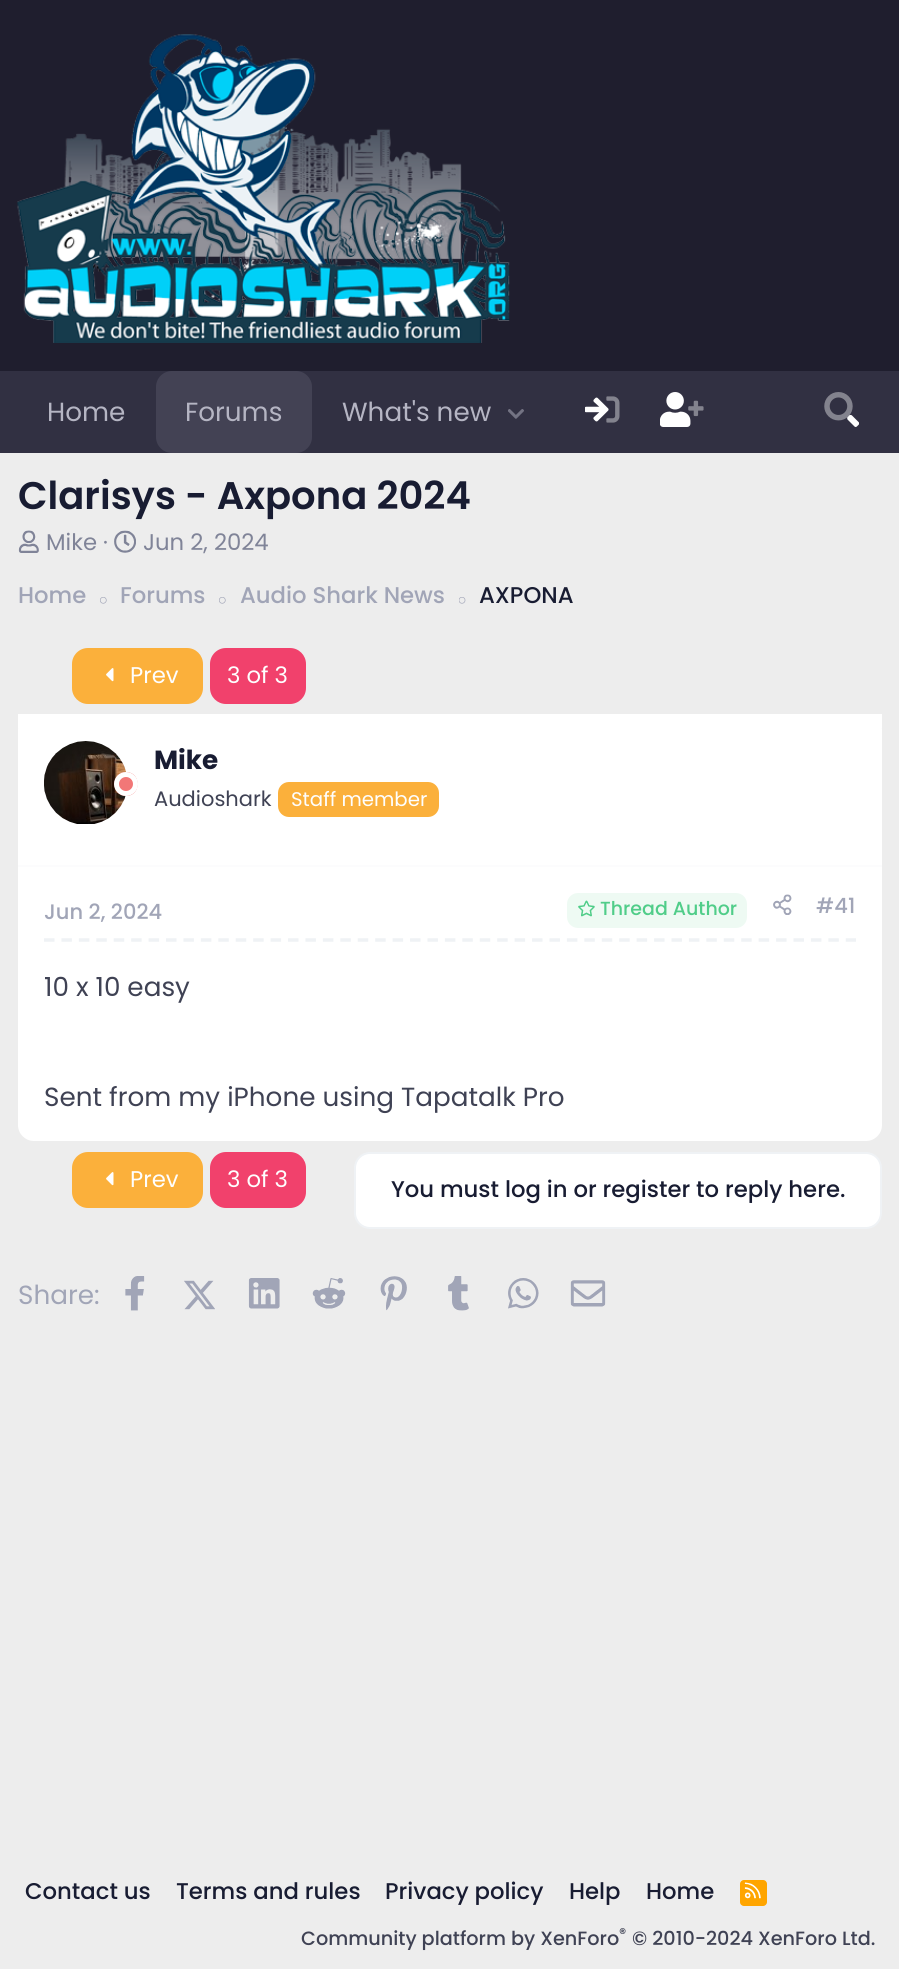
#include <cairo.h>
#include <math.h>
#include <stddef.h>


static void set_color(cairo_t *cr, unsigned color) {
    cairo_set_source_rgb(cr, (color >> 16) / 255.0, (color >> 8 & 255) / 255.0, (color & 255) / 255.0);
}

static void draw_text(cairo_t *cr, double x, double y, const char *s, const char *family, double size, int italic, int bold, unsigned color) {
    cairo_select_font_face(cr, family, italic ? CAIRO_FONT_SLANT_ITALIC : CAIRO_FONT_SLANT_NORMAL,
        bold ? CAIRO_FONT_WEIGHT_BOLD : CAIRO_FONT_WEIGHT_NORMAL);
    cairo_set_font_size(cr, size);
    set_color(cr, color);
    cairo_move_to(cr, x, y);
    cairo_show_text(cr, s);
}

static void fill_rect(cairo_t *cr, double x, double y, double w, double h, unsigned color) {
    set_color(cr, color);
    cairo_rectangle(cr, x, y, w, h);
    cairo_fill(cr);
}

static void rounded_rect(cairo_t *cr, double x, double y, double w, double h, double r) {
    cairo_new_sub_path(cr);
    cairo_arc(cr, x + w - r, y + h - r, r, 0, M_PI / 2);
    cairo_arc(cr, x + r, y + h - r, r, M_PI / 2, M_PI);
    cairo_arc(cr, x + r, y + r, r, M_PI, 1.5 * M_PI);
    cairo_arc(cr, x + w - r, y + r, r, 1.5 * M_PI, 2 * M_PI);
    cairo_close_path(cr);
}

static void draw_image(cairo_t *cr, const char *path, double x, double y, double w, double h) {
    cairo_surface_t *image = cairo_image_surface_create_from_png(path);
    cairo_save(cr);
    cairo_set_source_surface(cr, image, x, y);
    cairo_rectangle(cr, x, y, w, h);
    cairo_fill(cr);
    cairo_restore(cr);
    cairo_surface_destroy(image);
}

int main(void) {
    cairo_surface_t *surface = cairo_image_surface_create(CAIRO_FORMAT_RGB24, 899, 1969);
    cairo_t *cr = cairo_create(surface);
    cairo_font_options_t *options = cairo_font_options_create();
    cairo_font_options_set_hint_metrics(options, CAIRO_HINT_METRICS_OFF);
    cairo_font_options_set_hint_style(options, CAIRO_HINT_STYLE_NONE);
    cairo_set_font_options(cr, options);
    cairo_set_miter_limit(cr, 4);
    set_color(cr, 0xEDEDED);
    cairo_paint(cr);
    fill_rect(cr, 0, 0, 899, 371, 0x1F1E2E);
    draw_image(cr, "assets/img1.png", 17, 34, 493, 309);
    fill_rect(cr, 0, 371, 899, 82, 0x313042);
    draw_text(cr, 47, 421, "Home", "Poppins", 26.25, 0, 0, 0xB5B5C3);
    set_color(cr, 0x434254);
    rounded_rect(cr, 156, 371, 156, 82, 16);
    cairo_fill(cr);
    draw_text(cr, 185, 421, "Forums", "Poppins", 26.25, 0, 0, 0xB5B5C3);
    draw_text(cr, 342, 421, "What's new", "Poppins", 26.25, 0, 0, 0xB5B5C3);
    draw_image(cr, "assets/img2.png", 508, 409, 16, 10);
    draw_image(cr, "assets/img3.png", 585, 396, 35, 27);
    draw_image(cr, "assets/img4.png", 660, 392, 44, 35);
    draw_image(cr, "assets/img5.png", 824, 392, 35, 35);
    draw_text(cr, 18, 509, "Clarisys - Axpona 2024", "Poppins SemiBold", 38.5, 0, 0, 0x181C32);
    draw_image(cr, "assets/img6.png", 18, 530, 21, 23);
    draw_text(cr, 46, 550, "Mike ·", "Poppins", 22.75, 0, 0, 0x808498);
    draw_image(cr, "assets/img7.png", 114, 530, 22, 23);
    draw_text(cr, 143, 550, "Jun 2, 2024", "Poppins", 22.75, 0, 0, 0x808498);
    draw_text(cr, 18, 603, "Home", "Poppins Medium", 22.75, 0, 0, 0xA1A5B7);
    draw_image(cr, "assets/img8.png", 100, 597, 7, 7);
    draw_text(cr, 120, 603, "Forums", "Poppins Medium", 22.75, 0, 0, 0xA1A5B7);
    draw_image(cr, "assets/img8.png", 219, 597, 7, 7);
    draw_text(cr, 240, 603, "Audio Shark News", "Poppins Medium", 22.75, 0, 0, 0xA1A5B7);
    draw_image(cr, "assets/img9.png", 459, 597, 7, 7);
    draw_text(cr, 479, 603, "AXPONA", "Poppins Medium", 22.75, 0, 0, 0x181C32);
    set_color(cr, 0xFBB03B);
    rounded_rect(cr, 72, 648, 131, 56, 16);
    cairo_fill(cr);
    draw_image(cr, "assets/img10.png", 106, 668, 8, 14);
    draw_text(cr, 130, 683, "Prev", "Poppins", 22.75, 0, 0, 0xFEFEFE);
    set_color(cr, 0xF1416C);
    rounded_rect(cr, 210, 648, 96, 56, 16);
    cairo_fill(cr);
    draw_text(cr, 227, 683, "3 of 3", "Poppins", 22.75, 0, 0, 0xFEFEFE);
    set_color(cr, 0xFFFFFF);
    rounded_rect(cr, 18, 714, 864, 427, 16);
    cairo_fill(cr);
    fill_rect(cr, 18, 714, 864, 14, 0xFFFFFF);
    fill_rect(cr, 18, 865, 864, 2, 0xFCFCFD);
    draw_image(cr, "assets/img11.png", 44, 741, 83, 83);
    set_color(cr, 0xF27777);
    cairo_new_path(cr);
    cairo_move_to(cr, 126, 772);
    cairo_curve_to(cr, 110.5, 772, 110.5, 796, 126, 796);
    cairo_curve_to(cr, 141.5, 796, 141.5, 772, 126, 772);
    cairo_close_path(cr);
    cairo_fill(cr);
    cairo_arc(cr, 126, 784, 9.5, 0, 2 * M_PI);
    set_color(cr, 0xFFFFFF);
    cairo_set_line_width(cr, 5);
    cairo_stroke(cr);
    draw_text(cr, 154, 769, "Mike", "Poppins", 26.25, 0, 1, 0x181C32);
    draw_text(cr, 154, 806, "Audioshark", "Poppins", 21, 0, 0, 0x3F4254);
    set_color(cr, 0xFBB03B);
    rounded_rect(cr, 279, 783, 159, 33, 10);
    cairo_fill_preserve(cr);
    cairo_set_line_width(cr, 2);
    cairo_stroke(cr);
    draw_text(cr, 291, 806, "Staff member", "Poppins", 19.75, 0, 0, 0xFEFEFE);
    cairo_new_path(cr);
    cairo_move_to(cr, 44, 940);
    cairo_line_to(cr, 856, 940);
    set_color(cr, 0xEFF2F5);
    cairo_set_line_width(cr, 3.5);
    cairo_set_dash(cr, (double[]){10.5, 6.93}, 2, 0);
    cairo_stroke(cr);
    draw_text(cr, 44, 919, "Jun 2, 2024", "Poppins Medium", 21, 0, 0, 0xA1A5B7);
    set_color(cr, 0xEEFAF3);
    rounded_rect(cr, 567, 893, 180, 35, 11);
    cairo_fill(cr);
    draw_image(cr, "assets/img12.png", 578, 900, 17, 17);
    draw_text(cr, 600, 915, "Thread Author", "Poppins Medium", 19, 0, 0, 0x50CD89);
    draw_image(cr, "assets/img13.png", 773, 894, 19, 21);
    draw_text(cr, 816, 913, "#41", "Poppins Medium", 21, 0, 0, 0xA1A5B7);
    draw_text(cr, 44, 996, "10 x 10 easy", "Poppins", 26.25, 0, 0, 0x3F4254);
    draw_text(cr, 44, 1106, "Sent from my iPhone using Tapatalk Pro", "Poppins", 26.25, 0, 0, 0x3F4254);
    set_color(cr, 0xFBB03B);
    rounded_rect(cr, 72, 1152, 131, 56, 16);
    cairo_fill(cr);
    draw_image(cr, "assets/img10.png", 106, 1172, 8, 14);
    draw_text(cr, 130, 1187, "Prev", "Poppins", 22.75, 0, 0, 0xFEFEFE);
    set_color(cr, 0xF1416C);
    rounded_rect(cr, 210, 1152, 96, 56, 16);
    cairo_fill(cr);
    draw_text(cr, 227, 1187, "3 of 3", "Poppins", 22.75, 0, 0, 0xFEFEFE);
    set_color(cr, 0xFFFFFF);
    rounded_rect(cr, 355, 1153, 526, 75, 15);
    cairo_fill_preserve(cr);
    set_color(cr, 0xEFF2F5);
    cairo_set_line_width(cr, 2);
    cairo_set_dash(cr, NULL, 0, 0);
    cairo_stroke(cr);
    draw_text(cr, 391, 1197, "You must log in or register to reply here.", "Poppins Medium", 22.75, 0, 0, 0x181C32);
    draw_text(cr, 18, 1304, "Share:", "Poppins", 26.25, 0, 0, 0xA1A5B7);
    draw_image(cr, "assets/img14.png", 125, 1276, 20, 35);
    draw_image(cr, "assets/img15.png", 184, 1280, 31, 30);
    draw_image(cr, "assets/img16.png", 248, 1278, 32, 31);
    draw_image(cr, "assets/img17.png", 312, 1278, 34, 31);
    draw_image(cr, "assets/img18.png", 380, 1276, 27, 35);
    draw_image(cr, "assets/img19.png", 448, 1276, 21, 35);
    draw_image(cr, "assets/img20.png", 508, 1278, 31, 31);
    draw_image(cr, "assets/img21.png", 570, 1280, 36, 27);
    draw_text(cr, 25, 1899, "Contact us", "Poppins Medium", 22.75, 0, 0, 0x181C32);
    draw_text(cr, 176, 1899, "Terms and rules", "Poppins Medium", 22.75, 0, 0, 0x181C32);
    draw_text(cr, 385, 1899, "Privacy policy", "Poppins Medium", 22.75, 0, 0, 0x181C32);
    draw_text(cr, 569, 1899, "Help", "Poppins Medium", 22.75, 0, 0, 0x181C32);
    draw_text(cr, 646, 1899, "Home", "Poppins Medium", 22.75, 0, 0, 0x181C32);
    set_color(cr, 0xFFA500);
    rounded_rect(cr, 740, 1880, 27, 26, 4);
    cairo_fill(cr);
    draw_image(cr, "assets/img22.png", 744, 1882, 17, 17);
    draw_text(cr, 301, 1945, "Community platform by XenForo", "Poppins Medium", 19.25, 0, 0, 0x3F4254);
    draw_text(cr, 619, 1938, "®", "Poppins Medium", 14, 0, 0, 0x3F4254);
    draw_text(cr, 632, 1945, "© 2010-2024 XenForo Ltd.", "Poppins Medium", 19.25, 0, 0, 0x3F4254);
    cairo_surface_write_to_png(surface, "output.png");
    cairo_font_options_destroy(options);
    cairo_destroy(cr);
    cairo_surface_destroy(surface);
    return 0;
}
